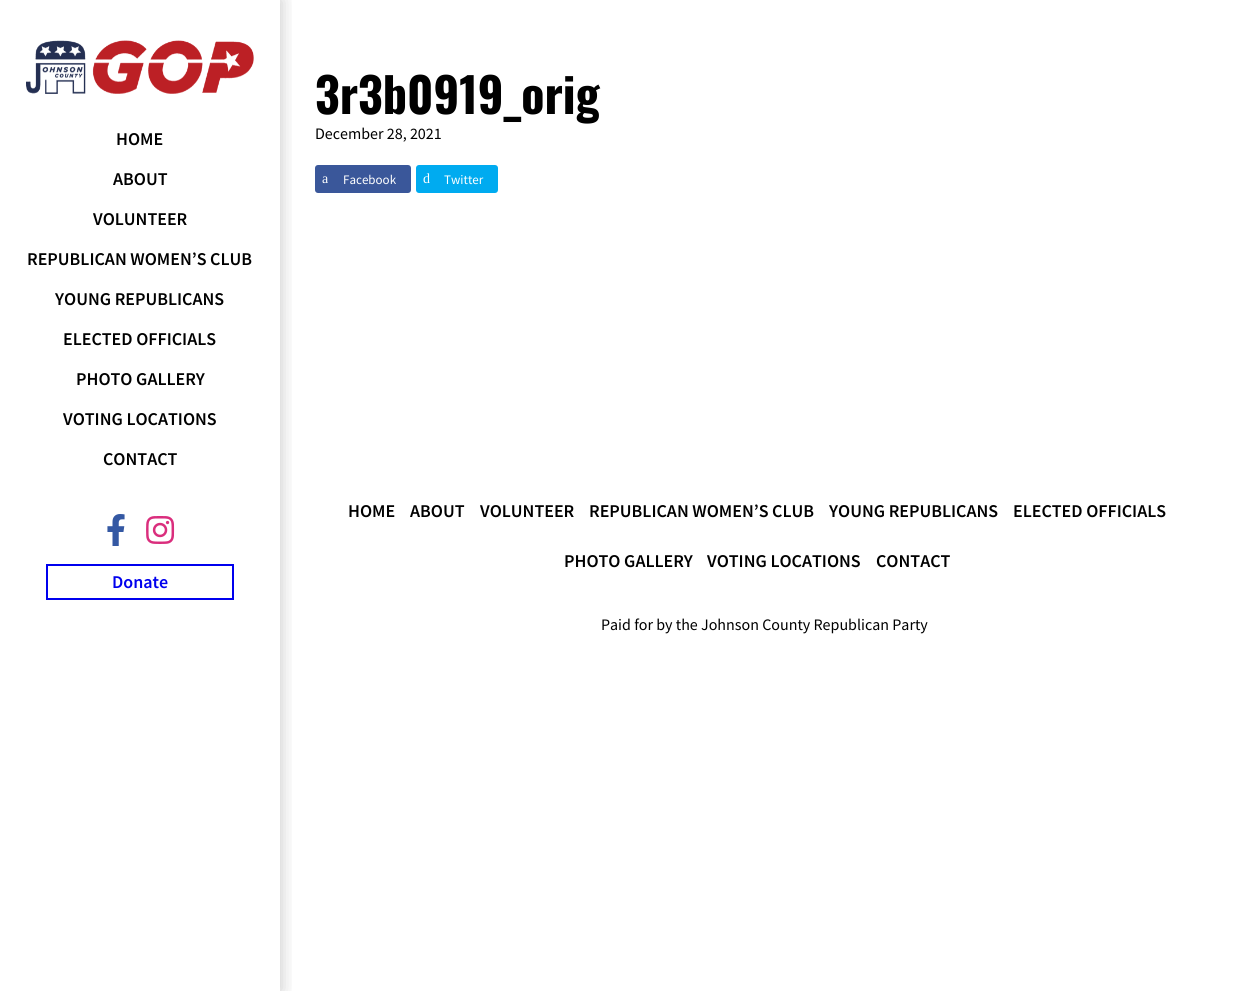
#include <cairo.h>
#include <math.h>
#include <stddef.h>


static void set_color(cairo_t *cr, unsigned color) {
    cairo_set_source_rgb(cr, (color >> 16) / 255.0, (color >> 8 & 255) / 255.0, (color & 255) / 255.0);
}

static void draw_text(cairo_t *cr, double x, double y, const char *s, const char *family, double size, int italic, int bold, unsigned color) {
    cairo_select_font_face(cr, family, italic ? CAIRO_FONT_SLANT_ITALIC : CAIRO_FONT_SLANT_NORMAL,
        bold ? CAIRO_FONT_WEIGHT_BOLD : CAIRO_FONT_WEIGHT_NORMAL);
    cairo_set_font_size(cr, size);
    set_color(cr, color);
    cairo_move_to(cr, x, y);
    cairo_show_text(cr, s);
}

static void rounded_rect(cairo_t *cr, double x, double y, double w, double h, double r) {
    cairo_new_sub_path(cr);
    cairo_arc(cr, x + w - r, y + h - r, r, 0, M_PI / 2);
    cairo_arc(cr, x + r, y + h - r, r, M_PI / 2, M_PI);
    cairo_arc(cr, x + r, y + r, r, M_PI, 1.5 * M_PI);
    cairo_arc(cr, x + w - r, y + r, r, 1.5 * M_PI, 2 * M_PI);
    cairo_close_path(cr);
}

static void draw_shadow(cairo_t *cr, double x, double y, double w, double h, double r, double blur, double alpha) {
    cairo_push_group_with_content(cr, CAIRO_CONTENT_ALPHA);
    cairo_set_operator(cr, CAIRO_OPERATOR_SOURCE);
    for (int i = 15; i >= -15 && fmin(w, h) + blur * i / 3 > 0; i -= 2) {
        double e = blur * i / 6;
        cairo_set_source_rgba(cr, 0, 0, 0, alpha * erfc((i - 1) / 8.5) / 2);
        rounded_rect(cr, x - e, y - e, w + 2 * e, h + 2 * e, fmax(0, fmin(r + e + blur * .6, fmin(w, h) / 2 + e)));
        cairo_fill(cr);
    }
    cairo_pattern_t *soft = cairo_pop_group(cr);
    cairo_mask(cr, soft);
    cairo_pattern_destroy(soft);
}

static void draw_image(cairo_t *cr, const char *path, double x, double y, double w, double h) {
    cairo_surface_t *image = cairo_image_surface_create_from_png(path);
    cairo_save(cr);
    cairo_set_source_surface(cr, image, x, y);
    cairo_rectangle(cr, x, y, w, h);
    cairo_fill(cr);
    cairo_restore(cr);
    cairo_surface_destroy(image);
}

int main(void) {
    cairo_surface_t *surface = cairo_image_surface_create(CAIRO_FORMAT_RGB24, 1249, 991);
    cairo_t *cr = cairo_create(surface);
    cairo_font_options_t *options = cairo_font_options_create();
    cairo_font_options_set_hint_metrics(options, CAIRO_HINT_METRICS_OFF);
    cairo_font_options_set_hint_style(options, CAIRO_HINT_STYLE_NONE);
    cairo_set_font_options(cr, options);
    cairo_set_miter_limit(cr, 4);
    set_color(cr, 0xFFFFFF);
    cairo_paint(cr);
    cairo_save(cr);
    cairo_rectangle(cr, 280, 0, 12, 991);
    cairo_clip(cr);
    set_color(cr, 0x000000);
    draw_shadow(cr, 2, 0, 280, 991, 0, 8, 0.2);
    cairo_restore(cr);
    draw_image(cr, "assets/img1.png", 26, 40, 228, 54);
    draw_text(cr, 116, 145, "HOME", "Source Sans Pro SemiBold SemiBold", 18, 0, 0, 0x000000);
    draw_text(cr, 113, 185, "ABOUT", "Source Sans Pro SemiBold SemiBold", 18, 0, 0, 0x000000);
    draw_text(cr, 93, 225, "VOLUNTEER", "Source Sans Pro SemiBold SemiBold", 18, 0, 0, 0x000000);
    draw_text(cr, 27, 265, "REPUBLICAN WOMEN’S CLUB", "Source Sans Pro SemiBold SemiBold", 18, 0, 0, 0x000000);
    draw_text(cr, 55, 305, "YOUNG REPUBLICANS", "Source Sans Pro SemiBold SemiBold", 18, 0, 0, 0x000000);
    draw_text(cr, 63, 345, "ELECTED OFFICIALS", "Source Sans Pro SemiBold SemiBold", 18, 0, 0, 0x000000);
    draw_text(cr, 76, 385, "PHOTO GALLERY", "Source Sans Pro SemiBold SemiBold", 18, 0, 0, 0x000000);
    draw_text(cr, 63, 425, "VOTING LOCATIONS", "Source Sans Pro SemiBold SemiBold", 18, 0, 0, 0x000000);
    draw_text(cr, 103, 465, "CONTACT", "Source Sans Pro SemiBold SemiBold", 18, 0, 0, 0x000000);
    draw_image(cr, "assets/img2.png", 107, 514, 18, 32);
    draw_image(cr, "assets/img3.png", 146, 516, 29, 28);
    cairo_rectangle(cr, 47, 565, 186, 34);
    set_color(cr, 0x0000EE);
    cairo_stroke(cr);
    draw_text(cr, 112, 588, "Donate", "Source Sans Pro SemiBold SemiBold", 18, 0, 0, 0x0000EE);
    draw_text(cr, 315, 114, "3r3b0919_orig", "Oswald", 48, 0, 1, 0x000000);
    draw_text(cr, 315, 139, "December 28, 2021", "Source Sans Pro", 16, 0, 0, 0x000000);
    set_color(cr, 0x3A579A);
    rounded_rect(cr, 315, 165, 96, 28, 3);
    cairo_fill(cr);
    draw_text(cr, 322, 183, "a", "Liberation Serif", 14, 0, 0, 0xFFFFFF);
    draw_text(cr, 343, 184, "Facebook", "Source Sans Pro", 13, 0, 0, 0xFFFFFF);
    set_color(cr, 0x00ABF0);
    rounded_rect(cr, 416, 165, 82, 28, 3);
    cairo_fill(cr);
    draw_text(cr, 423, 183, "d", "Liberation Serif", 14, 0, 0, 0xFFFFFF);
    draw_text(cr, 444, 184, "Twitter", "Source Sans Pro", 13, 0, 0, 0xFFFFFF);
    draw_text(cr, 348, 517, "HOME", "Source Sans Pro SemiBold SemiBold", 18, 0, 0, 0x000000);
    draw_text(cr, 410, 517, "ABOUT", "Source Sans Pro SemiBold SemiBold", 18, 0, 0, 0x000000);
    draw_text(cr, 480, 517, "VOLUNTEER", "Source Sans Pro SemiBold SemiBold", 18, 0, 0, 0x000000);
    draw_text(cr, 589, 517, "REPUBLICAN WOMEN’S CLUB", "Source Sans Pro SemiBold SemiBold", 18, 0, 0, 0x000000);
    draw_text(cr, 829, 517, "YOUNG REPUBLICANS", "Source Sans Pro SemiBold SemiBold", 18, 0, 0, 0x000000);
    draw_text(cr, 1013, 517, "ELECTED OFFICIALS", "Source Sans Pro SemiBold SemiBold", 18, 0, 0, 0x000000);
    draw_text(cr, 564, 567, "PHOTO GALLERY", "Source Sans Pro SemiBold SemiBold", 18, 0, 0, 0x000000);
    draw_text(cr, 707, 567, "VOTING LOCATIONS", "Source Sans Pro SemiBold SemiBold", 18, 0, 0, 0x000000);
    draw_text(cr, 876, 567, "CONTACT", "Source Sans Pro SemiBold SemiBold", 18, 0, 0, 0x000000);
    draw_text(cr, 601, 630, "Paid for by the Johnson County Republican Party", "Source Sans Pro", 16, 0, 0, 0x000000);
    cairo_surface_write_to_png(surface, "output.png");
    cairo_font_options_destroy(options);
    cairo_destroy(cr);
    cairo_surface_destroy(surface);
    return 0;
}
